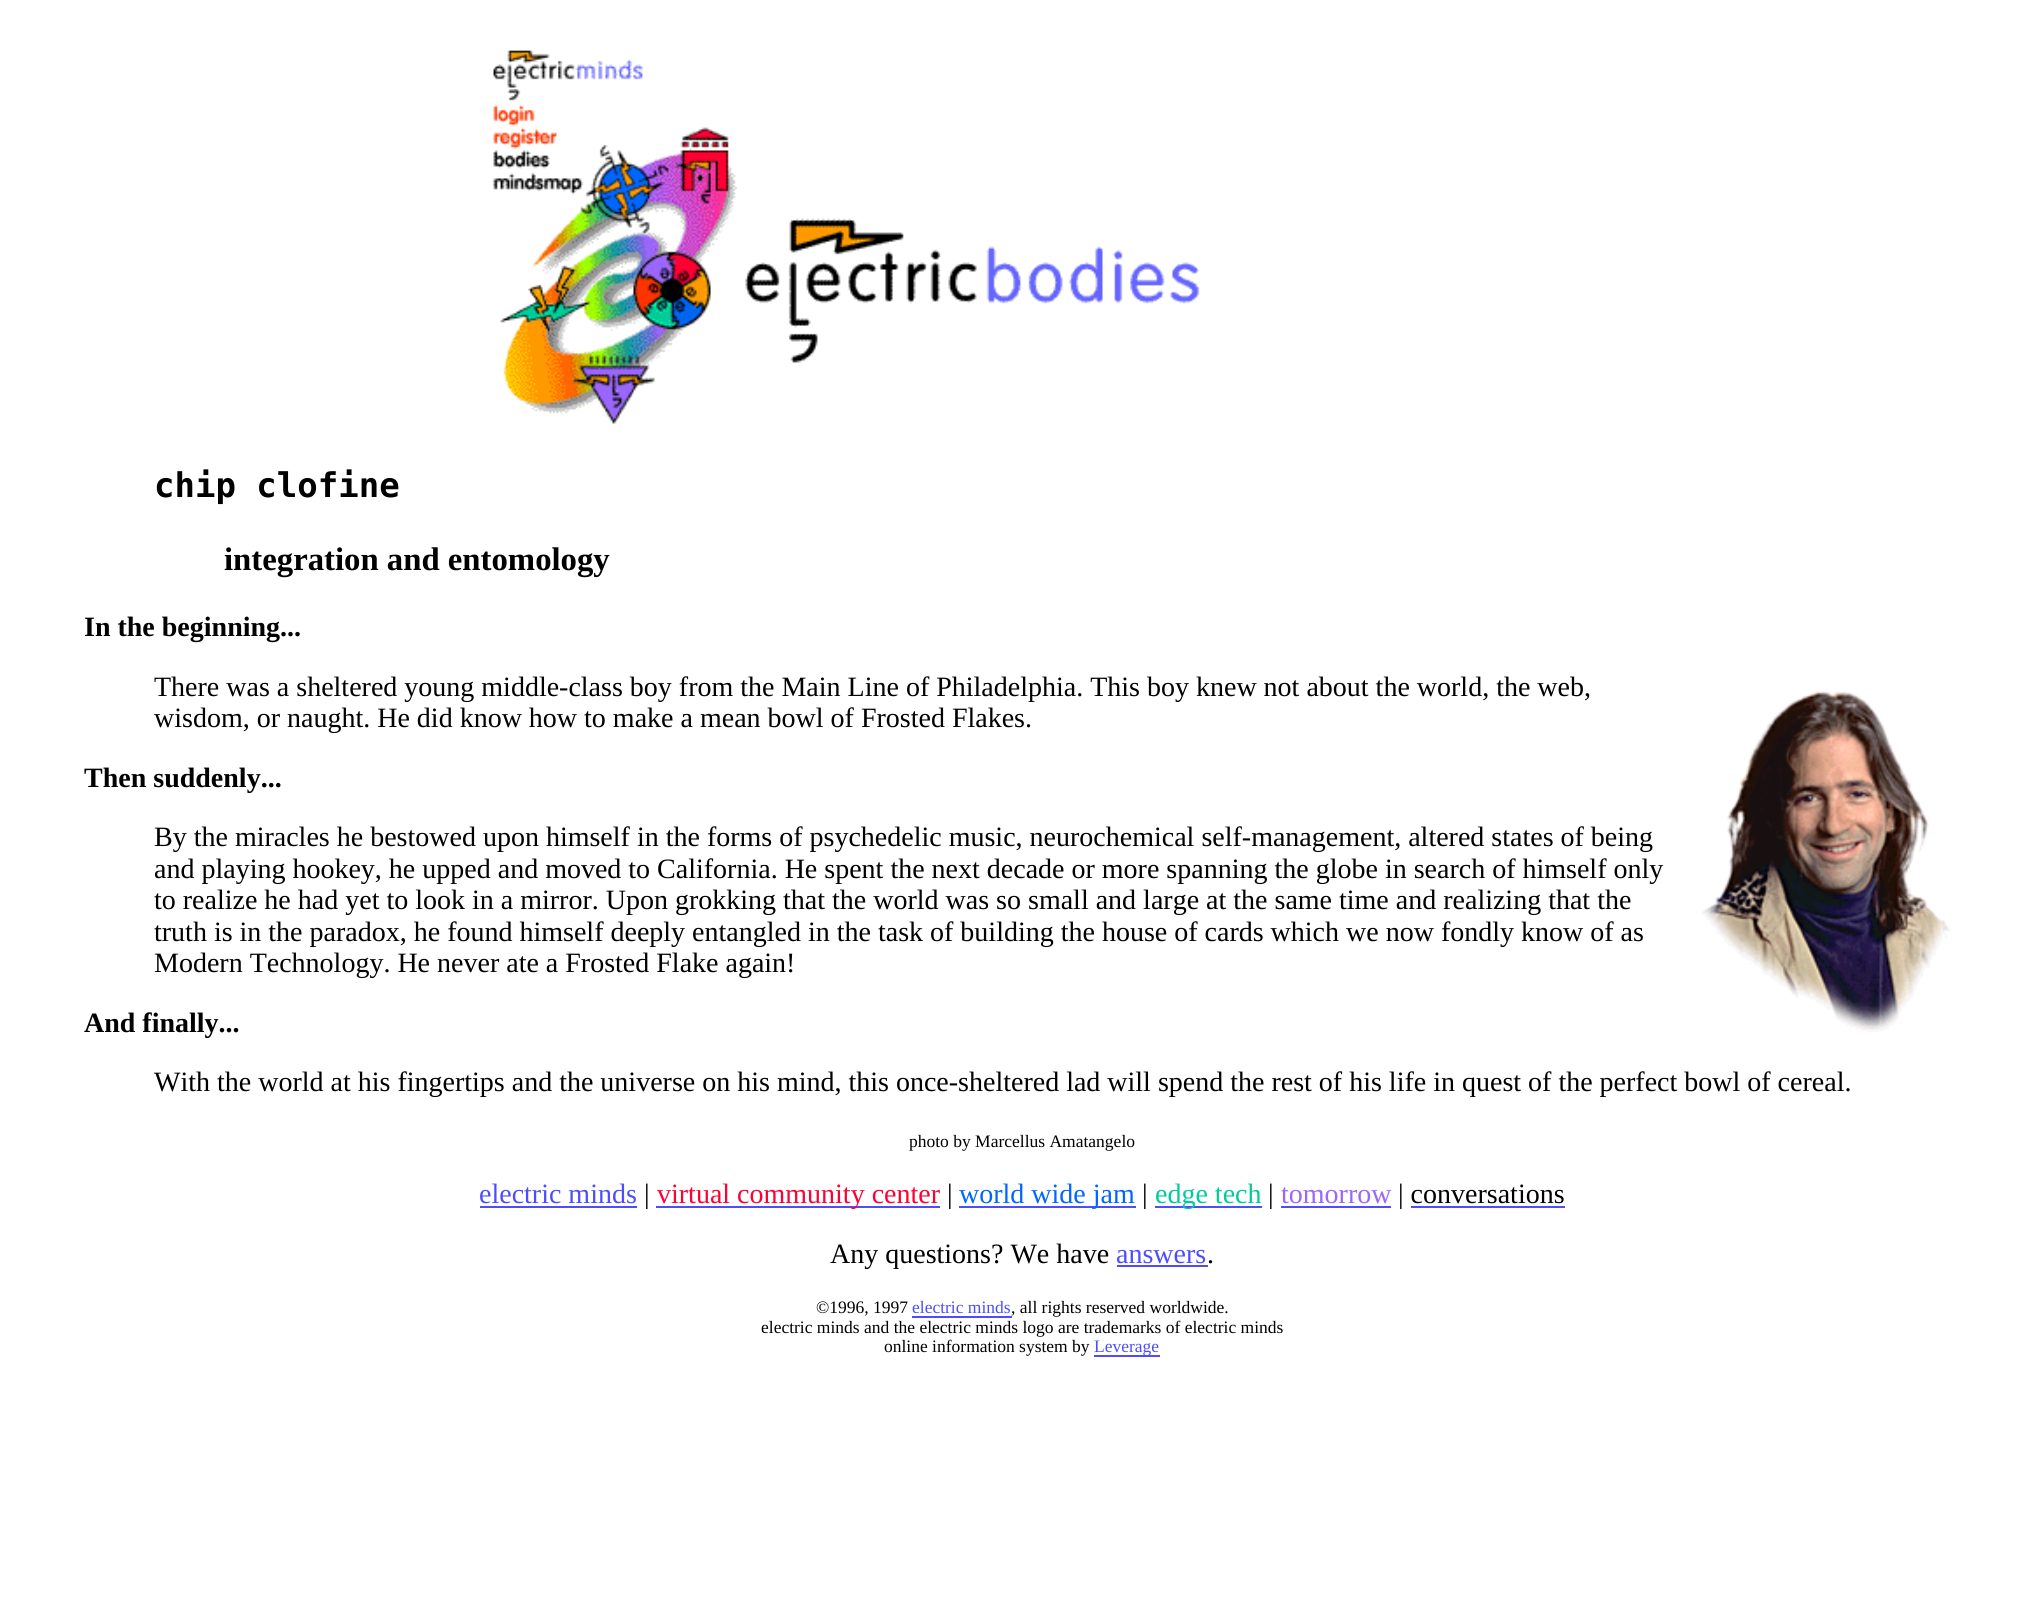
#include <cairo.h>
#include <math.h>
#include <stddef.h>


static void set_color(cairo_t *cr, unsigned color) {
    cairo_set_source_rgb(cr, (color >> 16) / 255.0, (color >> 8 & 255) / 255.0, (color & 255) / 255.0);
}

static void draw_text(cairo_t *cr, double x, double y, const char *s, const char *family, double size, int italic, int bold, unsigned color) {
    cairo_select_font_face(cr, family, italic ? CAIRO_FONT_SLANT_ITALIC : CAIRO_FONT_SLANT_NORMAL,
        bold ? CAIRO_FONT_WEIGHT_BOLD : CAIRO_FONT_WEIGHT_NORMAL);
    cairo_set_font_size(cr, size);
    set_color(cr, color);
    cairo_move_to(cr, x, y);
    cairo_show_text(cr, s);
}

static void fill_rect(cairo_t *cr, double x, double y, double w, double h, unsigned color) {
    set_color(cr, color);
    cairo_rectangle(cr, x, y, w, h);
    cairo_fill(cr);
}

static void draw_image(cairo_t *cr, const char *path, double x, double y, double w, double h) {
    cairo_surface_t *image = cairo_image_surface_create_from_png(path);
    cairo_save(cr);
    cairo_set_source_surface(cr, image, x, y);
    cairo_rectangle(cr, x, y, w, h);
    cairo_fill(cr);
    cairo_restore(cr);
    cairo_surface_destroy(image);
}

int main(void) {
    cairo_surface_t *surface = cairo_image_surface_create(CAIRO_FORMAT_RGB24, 2043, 1597);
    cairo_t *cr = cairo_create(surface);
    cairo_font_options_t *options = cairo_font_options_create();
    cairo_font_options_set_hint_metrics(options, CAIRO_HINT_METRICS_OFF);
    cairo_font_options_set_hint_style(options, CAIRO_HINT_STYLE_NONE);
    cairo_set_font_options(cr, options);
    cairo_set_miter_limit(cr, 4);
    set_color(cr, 0xFFFFFF);
    cairo_paint(cr);
    draw_image(cr, "assets/img1.png", 493, 50, 245, 374);
    draw_image(cr, "assets/img2.png", 745, 218, 455, 145);
    draw_text(cr, 154, 497, "chip clofine", "DejaVu Sans Mono", 34, 0, 1, 0x000000);
    draw_text(cr, 224, 570, "integration and entomology", "Liberation Serif", 32.75, 0, 1, 0x000000);
    draw_text(cr, 84, 636, "In the beginning...", "Liberation Serif", 28, 0, 1, 0x000000);
    draw_image(cr, "assets/img3.png", 1701, 691, 250, 341);
    draw_text(cr, 154, 696, "There was a sheltered young middle-class boy from the Main Line of Philadelphia. This boy knew not about the world, the web,", "Liberation Serif", 28, 0, 0, 0x000000);
    draw_text(cr, 154, 727, "wisdom, or naught. He did know how to make a mean bowl of Frosted Flakes.", "Liberation Serif", 28, 0, 0, 0x000000);
    draw_text(cr, 84, 787, "Then suddenly...", "Liberation Serif", 28, 0, 1, 0x000000);
    draw_text(cr, 154, 846, "By the miracles he bestowed upon himself in the forms of psychedelic music, neurochemical self-management, altered states of being", "Liberation Serif", 28, 0, 0, 0x000000);
    draw_text(cr, 154, 878, "and playing hookey, he upped and moved to California. He spent the next decade or more spanning the globe in search of himself only", "Liberation Serif", 28, 0, 0, 0x000000);
    draw_text(cr, 154, 909, "to realize he had yet to look in a mirror. Upon grokking that the world was so small and large at the same time and realizing that the", "Liberation Serif", 28, 0, 0, 0x000000);
    draw_text(cr, 154, 941, "truth is in the paradox, he found himself deeply entangled in the task of building the house of cards which we now fondly know of as", "Liberation Serif", 28, 0, 0, 0x000000);
    draw_text(cr, 154, 972, "Modern Technology. He never ate a Frosted Flake again!", "Liberation Serif", 28, 0, 0, 0x000000);
    draw_text(cr, 84, 1032, "And finally...", "Liberation Serif", 28, 0, 1, 0x000000);
    draw_text(cr, 154, 1091, "With the world at his fingertips and the universe on his mind, this once-sheltered lad will spend the rest of his life in quest of the perfect bowl of cereal.", "Liberation Serif", 28, 0, 0, 0x000000);
    draw_text(cr, 909, 1147, "photo by Marcellus Amatangelo", "Liberation Serif", 17.5, 0, 0, 0x000000);
    draw_text(cr, 479, 1203, "electric minds", "Liberation Serif", 28, 0, 0, 0x4D4DFF);
    fill_rect(cr, 480, 1206, 157, 2, 0x4D4DFF);
    draw_text(cr, 644, 1203, "|", "Liberation Serif", 28, 0, 0, 0x000000);
    fill_rect(cr, 656, 1206, 284, 2, 0x4D4DFF);
    draw_text(cr, 657, 1203, "virtual community center", "Liberation Serif", 28, 0, 0, 0xFF0033);
    draw_text(cr, 947, 1203, "|", "Liberation Serif", 28, 0, 0, 0x000000);
    fill_rect(cr, 959, 1206, 177, 2, 0x4D4DFF);
    draw_text(cr, 959, 1203, "world wide jam", "Liberation Serif", 28, 0, 0, 0x0066FF);
    draw_text(cr, 1142, 1203, "|", "Liberation Serif", 28, 0, 0, 0x000000);
    fill_rect(cr, 1155, 1206, 107, 2, 0x4D4DFF);
    draw_text(cr, 1155, 1203, "edge tech", "Liberation Serif", 28, 0, 0, 0x00CC99);
    draw_text(cr, 1268, 1203, "|", "Liberation Serif", 28, 0, 0, 0x000000);
    draw_text(cr, 1281, 1203, "tomorrow", "Liberation Serif", 28, 0, 0, 0x9966FF);
    fill_rect(cr, 1281, 1206, 110, 2, 0x4D4DFF);
    draw_text(cr, 1398, 1203, "| conversations", "Liberation Serif", 28, 0, 0, 0x000000);
    fill_rect(cr, 1411, 1206, 154, 2, 0x4D4DFF);
    draw_text(cr, 830, 1263, "Any questions? We have", "Liberation Serif", 28, 0, 0, 0x000000);
    draw_text(cr, 1116, 1263, "answers", "Liberation Serif", 28, 0, 0, 0x4D4DFF);
    draw_text(cr, 1207, 1263, ".", "Liberation Serif", 28, 0, 0, 0x000000);
    fill_rect(cr, 1117, 1265, 91, 2, 0x4D4DFF);
    draw_text(cr, 816, 1313, "©1996, 1997", "Liberation Serif", 17.5, 0, 0, 0x000000);
    draw_text(cr, 912, 1313, "electric minds", "Liberation Serif", 17.5, 0, 0, 0x4D4DFF);
    fill_rect(cr, 912, 1316, 100, 2, 0x4D4DFF);
    draw_text(cr, 1011, 1313, ", all rights reserved worldwide.", "Liberation Serif", 17.5, 0, 0, 0x000000);
    draw_text(cr, 761, 1333, "electric minds and the electric minds logo are trademarks of electric minds", "Liberation Serif", 17.5, 0, 0, 0x000000);
    draw_text(cr, 884, 1352, "online information system by", "Liberation Serif", 17.5, 0, 0, 0x000000);
    fill_rect(cr, 1094, 1355, 66, 2, 0x4D4DFF);
    draw_text(cr, 1094, 1352, "Leverage", "Liberation Serif", 17.5, 0, 0, 0x4D4DFF);
    cairo_surface_write_to_png(surface, "output.png");
    cairo_font_options_destroy(options);
    cairo_destroy(cr);
    cairo_surface_destroy(surface);
    return 0;
}
